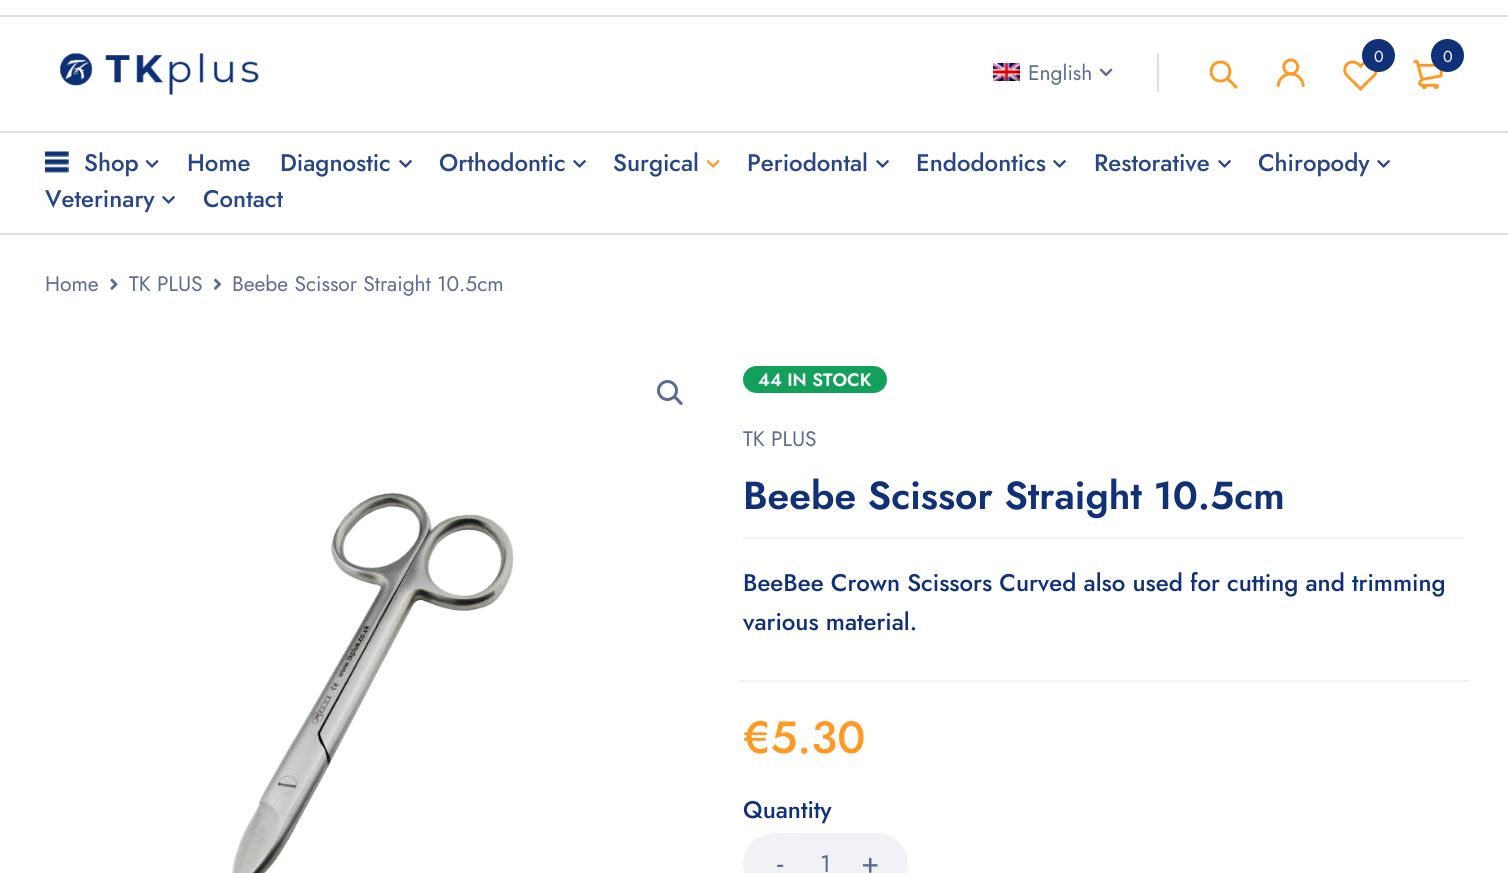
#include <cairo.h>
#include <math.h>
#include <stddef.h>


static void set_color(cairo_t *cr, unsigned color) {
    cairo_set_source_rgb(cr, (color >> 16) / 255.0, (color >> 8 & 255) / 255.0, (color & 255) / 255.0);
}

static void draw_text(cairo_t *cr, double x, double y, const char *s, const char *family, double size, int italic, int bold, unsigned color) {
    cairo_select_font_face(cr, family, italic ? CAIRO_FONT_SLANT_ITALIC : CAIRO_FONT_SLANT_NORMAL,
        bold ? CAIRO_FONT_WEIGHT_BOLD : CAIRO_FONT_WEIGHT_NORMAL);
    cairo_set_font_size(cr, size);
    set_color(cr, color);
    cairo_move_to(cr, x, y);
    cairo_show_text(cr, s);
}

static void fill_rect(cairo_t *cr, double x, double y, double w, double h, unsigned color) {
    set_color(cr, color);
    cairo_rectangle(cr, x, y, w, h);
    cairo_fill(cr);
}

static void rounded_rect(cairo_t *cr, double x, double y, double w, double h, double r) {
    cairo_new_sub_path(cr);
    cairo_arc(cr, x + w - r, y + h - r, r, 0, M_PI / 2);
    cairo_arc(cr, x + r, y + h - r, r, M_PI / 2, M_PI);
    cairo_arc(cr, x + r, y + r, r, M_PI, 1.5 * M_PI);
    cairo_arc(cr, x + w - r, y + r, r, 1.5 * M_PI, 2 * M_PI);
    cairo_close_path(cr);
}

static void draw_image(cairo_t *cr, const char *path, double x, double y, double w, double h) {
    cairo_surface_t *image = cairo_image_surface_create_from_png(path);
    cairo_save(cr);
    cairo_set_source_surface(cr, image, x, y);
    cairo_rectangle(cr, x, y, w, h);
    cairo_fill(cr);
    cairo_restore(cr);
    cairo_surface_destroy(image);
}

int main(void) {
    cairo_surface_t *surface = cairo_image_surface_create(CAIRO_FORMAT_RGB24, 1508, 873);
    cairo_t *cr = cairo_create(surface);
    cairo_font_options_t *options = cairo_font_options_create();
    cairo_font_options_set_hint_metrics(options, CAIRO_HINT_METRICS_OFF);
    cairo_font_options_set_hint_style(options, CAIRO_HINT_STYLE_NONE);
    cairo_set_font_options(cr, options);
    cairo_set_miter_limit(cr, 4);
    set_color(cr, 0xFFFFFF);
    cairo_paint(cr);
    fill_rect(cr, 0, 15, 1508, 2, 0xD9DEE8);
    fill_rect(cr, 0, 131, 1508, 2, 0xD9DEE8);
    draw_image(cr, "assets/img1.png", 60, 53, 199, 42);
    cairo_new_path(cr);
    cairo_move_to(cr, 1347.5, 76);
    cairo_curve_to(cr, 1340.5, 69.5, 1348, 58.5, 1356.5, 63);
    cairo_curve_to(cr, 1358, 63.5, 1359.5, 65, 1360.5, 66);
    cairo_curve_to(cr, 1362, 64.5, 1363.5, 63, 1365.5, 62.5);
    cairo_curve_to(cr, 1372, 60, 1378.5, 67, 1375.5, 73.5);
    cairo_curve_to(cr, 1374, 76, 1371, 78.5, 1369, 80.5);
    cairo_line_to(cr, 1360.5, 89);
    cairo_close_path(cr);
    set_color(cr, 0xFF9923);
    cairo_set_line_width(cr, 2.9);
    cairo_stroke(cr);
    set_color(cr, 0x103178);
    cairo_arc(cr, 1378.5, 55.5, 16.5, 0, 2 * M_PI);
    cairo_fill(cr);
    draw_text(cr, 1374, 62, "0", "Jost", 16, 0, 0, 0xFFFFFF);
    draw_image(cr, "assets/img2.png", 1413, 60, 30, 30);
    set_color(cr, 0x103178);
    cairo_arc(cr, 1447.5, 55.5, 16.5, 0, 2 * M_PI);
    cairo_fill(cr);
    draw_text(cr, 1443, 62, "0", "Jost", 16, 0, 0, 0xFFFFFF);
    draw_image(cr, "assets/img3.png", 993, 63, 27, 18);
    draw_text(cr, 1028, 80, "English", "Jost", 21, 0, 0, 0x5B6C8F);
    draw_image(cr, "assets/img4.png", 1099, 68, 14, 9);
    fill_rect(cr, 1157, 53, 2, 39, 0xD9DEE8);
    cairo_new_path(cr);
    cairo_move_to(cr, 1220.5, 81);
    cairo_curve_to(cr, 1233, 81, 1233, 62, 1220.5, 62);
    cairo_curve_to(cr, 1208, 62, 1208, 81, 1220.5, 81);
    cairo_close_path(cr);
    cairo_move_to(cr, 1237, 88);
    cairo_line_to(cr, 1227, 78);
    set_color(cr, 0xFF9923);
    cairo_stroke(cr);
    draw_image(cr, "assets/img5.png", 1276, 58, 29, 29);
    fill_rect(cr, 0, 233, 1508, 2, 0xD9DEE8);
    draw_image(cr, "assets/img6.png", 45, 151, 24, 22);
    draw_text(cr, 84, 171, "Shop", "Jost Medium", 24, 0, 0, 0x284686);
    draw_image(cr, "assets/img7.png", 145, 160, 14, 8);
    draw_text(cr, 187, 171, "Home", "Jost Medium", 24, 0, 0, 0x284686);
    draw_text(cr, 280, 171, "Diagnostic", "Jost Medium", 24, 0, 0, 0x284686);
    draw_image(cr, "assets/img8.png", 399, 160, 13, 8);
    draw_text(cr, 439, 171, "Orthodontic", "Jost Medium", 24, 0, 0, 0x284686);
    draw_image(cr, "assets/img8.png", 573, 160, 13, 8);
    draw_text(cr, 613, 171, "Surgical", "Jost Medium", 24, 0, 0, 0x284686);
    draw_image(cr, "assets/img9.png", 706, 160, 14, 8);
    draw_text(cr, 747, 171, "Periodontal", "Jost Medium", 24, 0, 0, 0x284686);
    draw_image(cr, "assets/img8.png", 876, 160, 13, 8);
    draw_text(cr, 916, 171, "Endodontics", "Jost Medium", 24, 0, 0, 0x284686);
    draw_image(cr, "assets/img8.png", 1053, 160, 13, 8);
    draw_text(cr, 1094, 171, "Restorative", "Jost Medium", 24, 0, 0, 0x284686);
    draw_image(cr, "assets/img8.png", 1218, 160, 13, 8);
    draw_text(cr, 1258, 171, "Chiropody", "Jost Medium", 24, 0, 0, 0x284686);
    draw_image(cr, "assets/img8.png", 1377, 160, 13, 8);
    draw_text(cr, 45, 207, "Veterinary", "Jost Medium", 24, 0, 0, 0x284686);
    draw_image(cr, "assets/img8.png", 162, 196, 13, 8);
    draw_text(cr, 203, 207, "Contact", "Jost Medium", 24, 0, 0, 0x284686);
    draw_text(cr, 45, 291, "Home", "Jost", 21, 0, 0, 0x5B6C8F);
    draw_image(cr, "assets/img10.png", 110, 278, 8, 12);
    draw_text(cr, 129, 291, "TK PLUS", "Jost", 21, 0, 0, 0x5B6C8F);
    draw_image(cr, "assets/img11.png", 213, 278, 9, 12);
    draw_text(cr, 232, 291, "Beebe Scissor Straight 10.5cm", "Jost", 21, 0, 0, 0x5B6C8F);
    cairo_new_path(cr);
    cairo_arc(cr, 667.5, 390.5, 9, 0, 2 * M_PI);
    cairo_set_line_width(cr, 3);
    cairo_stroke(cr);
    cairo_new_path(cr);
    cairo_move_to(cr, 674, 396.5);
    cairo_curve_to(cr, 675.5, 394.5, 678.5, 398.5, 679.5, 399.5);
    cairo_curve_to(cr, 680, 400.5, 684, 403, 682.5, 404.5);
    cairo_curve_to(cr, 681, 406.5, 678, 402.5, 677, 401.5);
    cairo_curve_to(cr, 676.5, 400.5, 672.5, 398, 674, 396.5);
    cairo_close_path(cr);
    cairo_fill(cr);
    draw_image(cr, "assets/img12.png", 232, 492, 282, 381);
    set_color(cr, 0x12A05C);
    rounded_rect(cr, 743, 366, 144, 27, 13.5);
    cairo_fill(cr);
    draw_text(cr, 758, 386, "44 IN STOCK", "Jost SemiBold", 18, 0, 0, 0xFFFFFF);
    draw_text(cr, 743, 446, "TK PLUS", "Jost", 21, 0, 0, 0x5B6C8F);
    draw_text(cr, 743, 509, "Beebe Scissor Straight 10.5cm", "Jost SemiBold", 39, 0, 0, 0x103178);
    fill_rect(cr, 743, 537, 721, 2, 0xF0F2F5);
    draw_text(cr, 743, 591, "BeeBee Crown Scissors Curved also used for cutting and trimming", "Jost Medium", 24, 0, 0, 0x103178);
    draw_text(cr, 743, 630, "various material.", "Jost Medium", 24, 0, 0, 0x103178);
    fill_rect(cr, 738, 680, 731, 2, 0xF0F2F5);
    draw_text(cr, 743, 753, "€5.30", "Jost Medium", 45, 0, 0, 0xFF9923);
    draw_text(cr, 743, 818, "Quantity", "Jost Medium", 24, 0, 0, 0x103178);
    set_color(cr, 0xF0F2F5);
    rounded_rect(cr, 743, 833, 165, 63, 31.5);
    cairo_fill(cr);
    draw_text(cr, 777, 873, "-", "Jost", 30, 0, 0, 0x5B6C8F);
    draw_text(cr, 820, 872, "1", "Jost", 24, 0, 0, 0x5B6C8F);
    draw_text(cr, 861, 873, "+", "Jost", 30, 0, 0, 0x5B6C8F);
    cairo_surface_write_to_png(surface, "output.png");
    cairo_font_options_destroy(options);
    cairo_destroy(cr);
    cairo_surface_destroy(surface);
    return 0;
}
